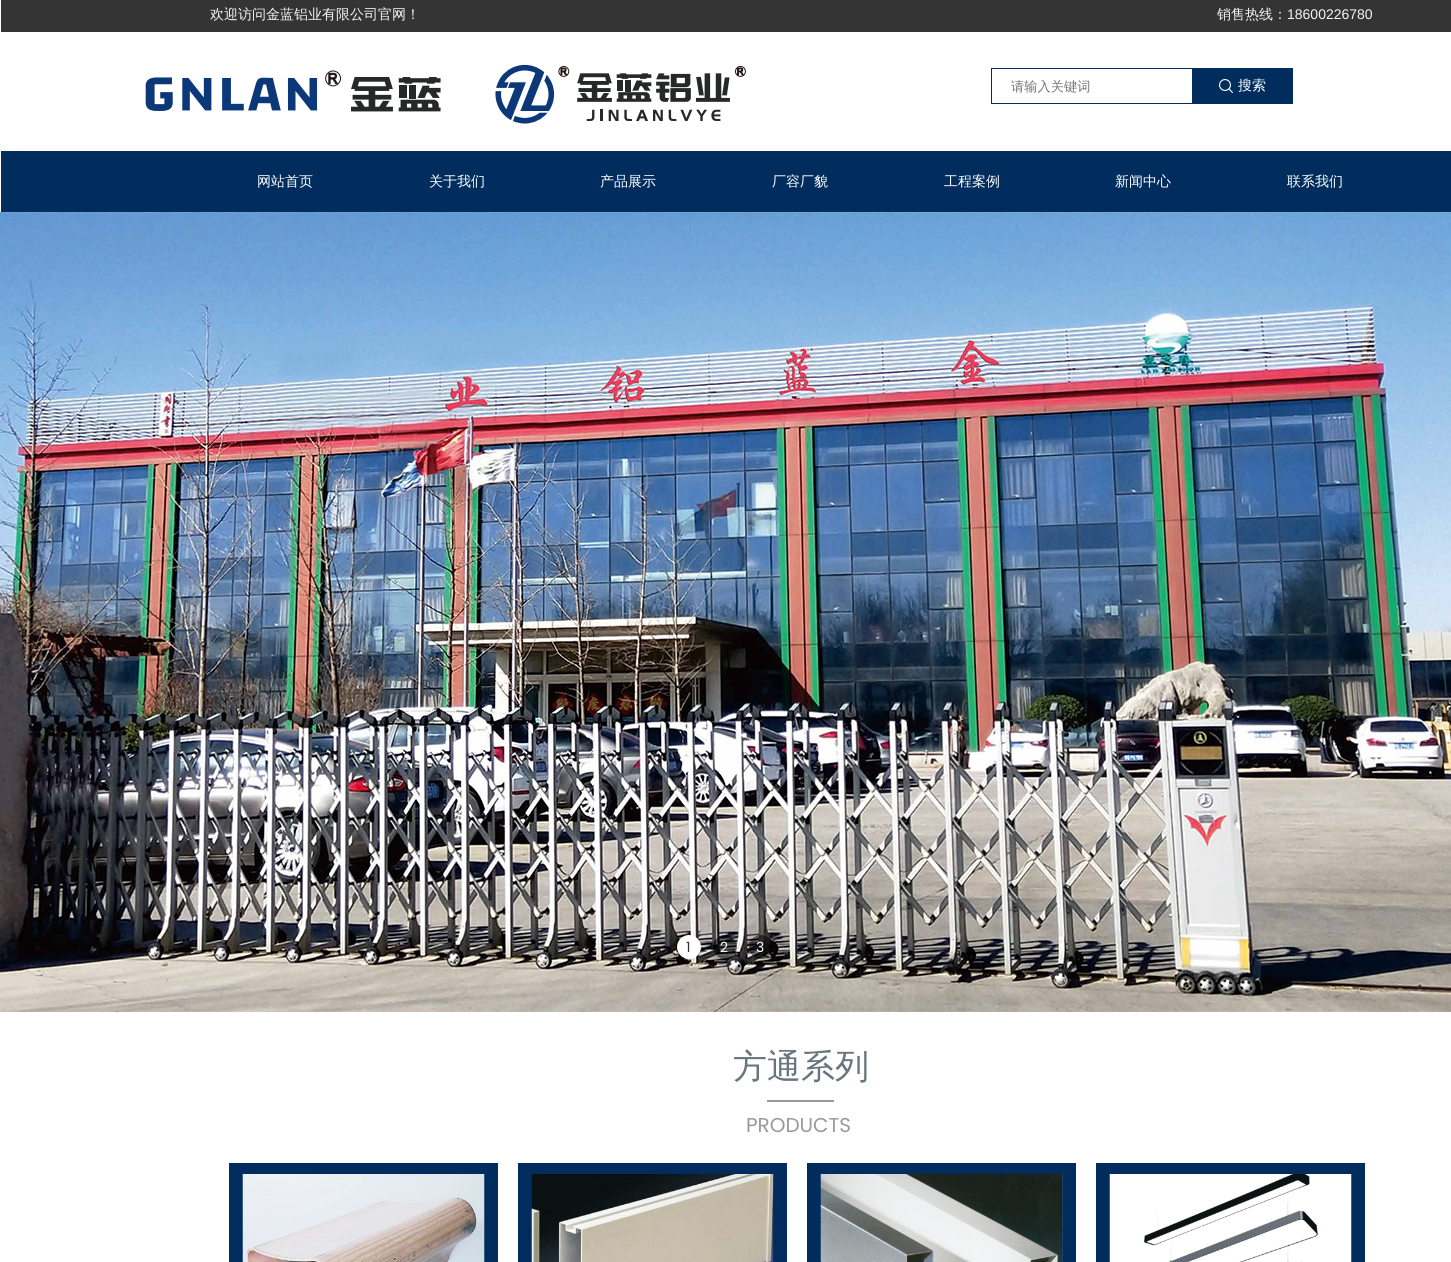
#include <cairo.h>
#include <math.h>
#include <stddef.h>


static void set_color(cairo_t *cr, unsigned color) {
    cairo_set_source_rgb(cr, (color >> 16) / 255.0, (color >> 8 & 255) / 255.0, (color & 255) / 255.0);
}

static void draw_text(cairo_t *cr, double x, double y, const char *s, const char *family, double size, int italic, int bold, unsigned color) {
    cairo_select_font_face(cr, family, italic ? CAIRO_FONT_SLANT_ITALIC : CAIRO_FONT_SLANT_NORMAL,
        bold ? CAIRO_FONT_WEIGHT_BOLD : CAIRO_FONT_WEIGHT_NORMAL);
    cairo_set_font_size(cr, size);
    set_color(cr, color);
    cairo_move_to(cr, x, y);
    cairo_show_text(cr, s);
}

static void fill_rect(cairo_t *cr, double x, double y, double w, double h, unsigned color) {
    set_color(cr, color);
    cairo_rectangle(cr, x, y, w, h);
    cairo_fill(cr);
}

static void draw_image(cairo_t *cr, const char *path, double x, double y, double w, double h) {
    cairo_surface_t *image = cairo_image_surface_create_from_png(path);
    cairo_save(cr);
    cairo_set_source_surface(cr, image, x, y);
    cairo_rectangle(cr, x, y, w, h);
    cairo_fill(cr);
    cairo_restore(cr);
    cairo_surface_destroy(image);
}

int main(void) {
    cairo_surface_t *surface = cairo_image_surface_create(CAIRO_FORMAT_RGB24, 1451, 1262);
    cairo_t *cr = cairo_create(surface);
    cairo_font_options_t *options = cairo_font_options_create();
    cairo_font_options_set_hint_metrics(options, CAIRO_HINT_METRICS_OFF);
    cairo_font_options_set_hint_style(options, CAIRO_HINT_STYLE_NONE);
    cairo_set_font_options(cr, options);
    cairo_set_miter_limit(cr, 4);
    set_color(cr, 0xFFFFFF);
    cairo_paint(cr);
    fill_rect(cr, 1, 0, 1450, 32, 0x343434);
    draw_text(cr, 210, 19, "欢迎访问金蓝铝业有限公司官网！", "WenQuanYi Zen Hei Medium", 14, 0, 0, 0xF4F4F4);
    draw_text(cr, 1217, 19, "销售热线：", "WenQuanYi Zen Hei Medium", 14, 0, 0, 0xF4F4F4);
    draw_text(cr, 1287, 19, "18600226780", "Liberation Sans", 14, 0, 0, 0xF4F4F4);
    draw_image(cr, "assets/img1.png", 145, 64, 601, 60);
    cairo_rectangle(cr, 991.5, 68.5, 201, 35);
    set_color(cr, 0x002D5E);
    cairo_set_line_width(cr, 1);
    cairo_stroke(cr);
    draw_text(cr, 1011, 91, "请输入关键词", "WenQuanYi Zen Hei Medium", 13.25, 0, 0, 0x757575);
    fill_rect(cr, 1193, 68, 100, 36, 0x002D5E);
    draw_image(cr, "assets/img2.png", 1219, 79, 14, 14);
    draw_text(cr, 1238, 90, "搜索", "WenQuanYi Zen Hei Medium", 14, 0, 0, 0xFFFFFF);
    fill_rect(cr, 1, 151, 1450, 61, 0x002D5E);
    draw_text(cr, 257, 186, "网站首页", "WenQuanYi Zen Hei Medium", 14, 0, 0, 0xFFFFFF);
    draw_text(cr, 429, 186, "关于我们", "WenQuanYi Zen Hei Medium", 14, 0, 0, 0xFFFFFF);
    draw_text(cr, 600, 186, "产品展示", "WenQuanYi Zen Hei Medium", 14, 0, 0, 0xFFFFFF);
    draw_text(cr, 772, 186, "厂容厂貌", "WenQuanYi Zen Hei Medium", 14, 0, 0, 0xFFFFFF);
    draw_text(cr, 944, 186, "工程案例", "WenQuanYi Zen Hei Medium", 14, 0, 0, 0xFFFFFF);
    draw_text(cr, 1115, 186, "新闻中心", "WenQuanYi Zen Hei Medium", 14, 0, 0, 0xFFFFFF);
    draw_text(cr, 1287, 186, "联系我们", "WenQuanYi Zen Hei Medium", 14, 0, 0, 0xFFFFFF);
    draw_image(cr, "assets/img3.png", 0, 212, 1451, 800);
    cairo_arc(cr, 689, 947, 12, 0, 2 * M_PI);
    cairo_fill(cr);
    draw_text(cr, 686, 952, "1", "Poppins", 14, 0, 0, 0x333333);
    cairo_set_source_rgba(cr, 0, 0, 0, 0.5);
    cairo_new_path(cr);
    cairo_arc(cr, 725, 947, 12, 0, 2 * M_PI);
    cairo_fill(cr);
    draw_text(cr, 720, 952, "2", "Poppins", 14, 0, 0, 0xFFFFFF);
    cairo_set_source_rgba(cr, 0, 0, 0, 0.5);
    cairo_new_path(cr);
    cairo_arc(cr, 761, 947, 12, 0, 2 * M_PI);
    cairo_fill(cr);
    draw_text(cr, 756, 952, "3", "Poppins", 14, 0, 0, 0xFFFFFF);
    draw_text(cr, 733, 1078, "方通系列", "WenQuanYi Zen Hei Medium", 34, 0, 0, 0x67757C);
    fill_rect(cr, 767, 1100, 67, 2, 0x999999);
    draw_text(cr, 746, 1132, "PRODUCTS", "Poppins", 20, 0, 0, 0x999999);
    fill_rect(cr, 229, 1163, 269, 99, 0x002D5E);
    draw_image(cr, "assets/img4.png", 242, 1174, 243, 88);
    fill_rect(cr, 518, 1163, 269, 99, 0x002D5E);
    draw_image(cr, "assets/img5.png", 531, 1174, 243, 88);
    fill_rect(cr, 807, 1163, 269, 99, 0x002D5E);
    draw_image(cr, "assets/img6.png", 820, 1174, 243, 88);
    fill_rect(cr, 1096, 1163, 269, 99, 0x002D5E);
    draw_image(cr, "assets/img7.png", 1109, 1174, 243, 88);
    cairo_surface_write_to_png(surface, "output.png");
    cairo_font_options_destroy(options);
    cairo_destroy(cr);
    cairo_surface_destroy(surface);
    return 0;
}
